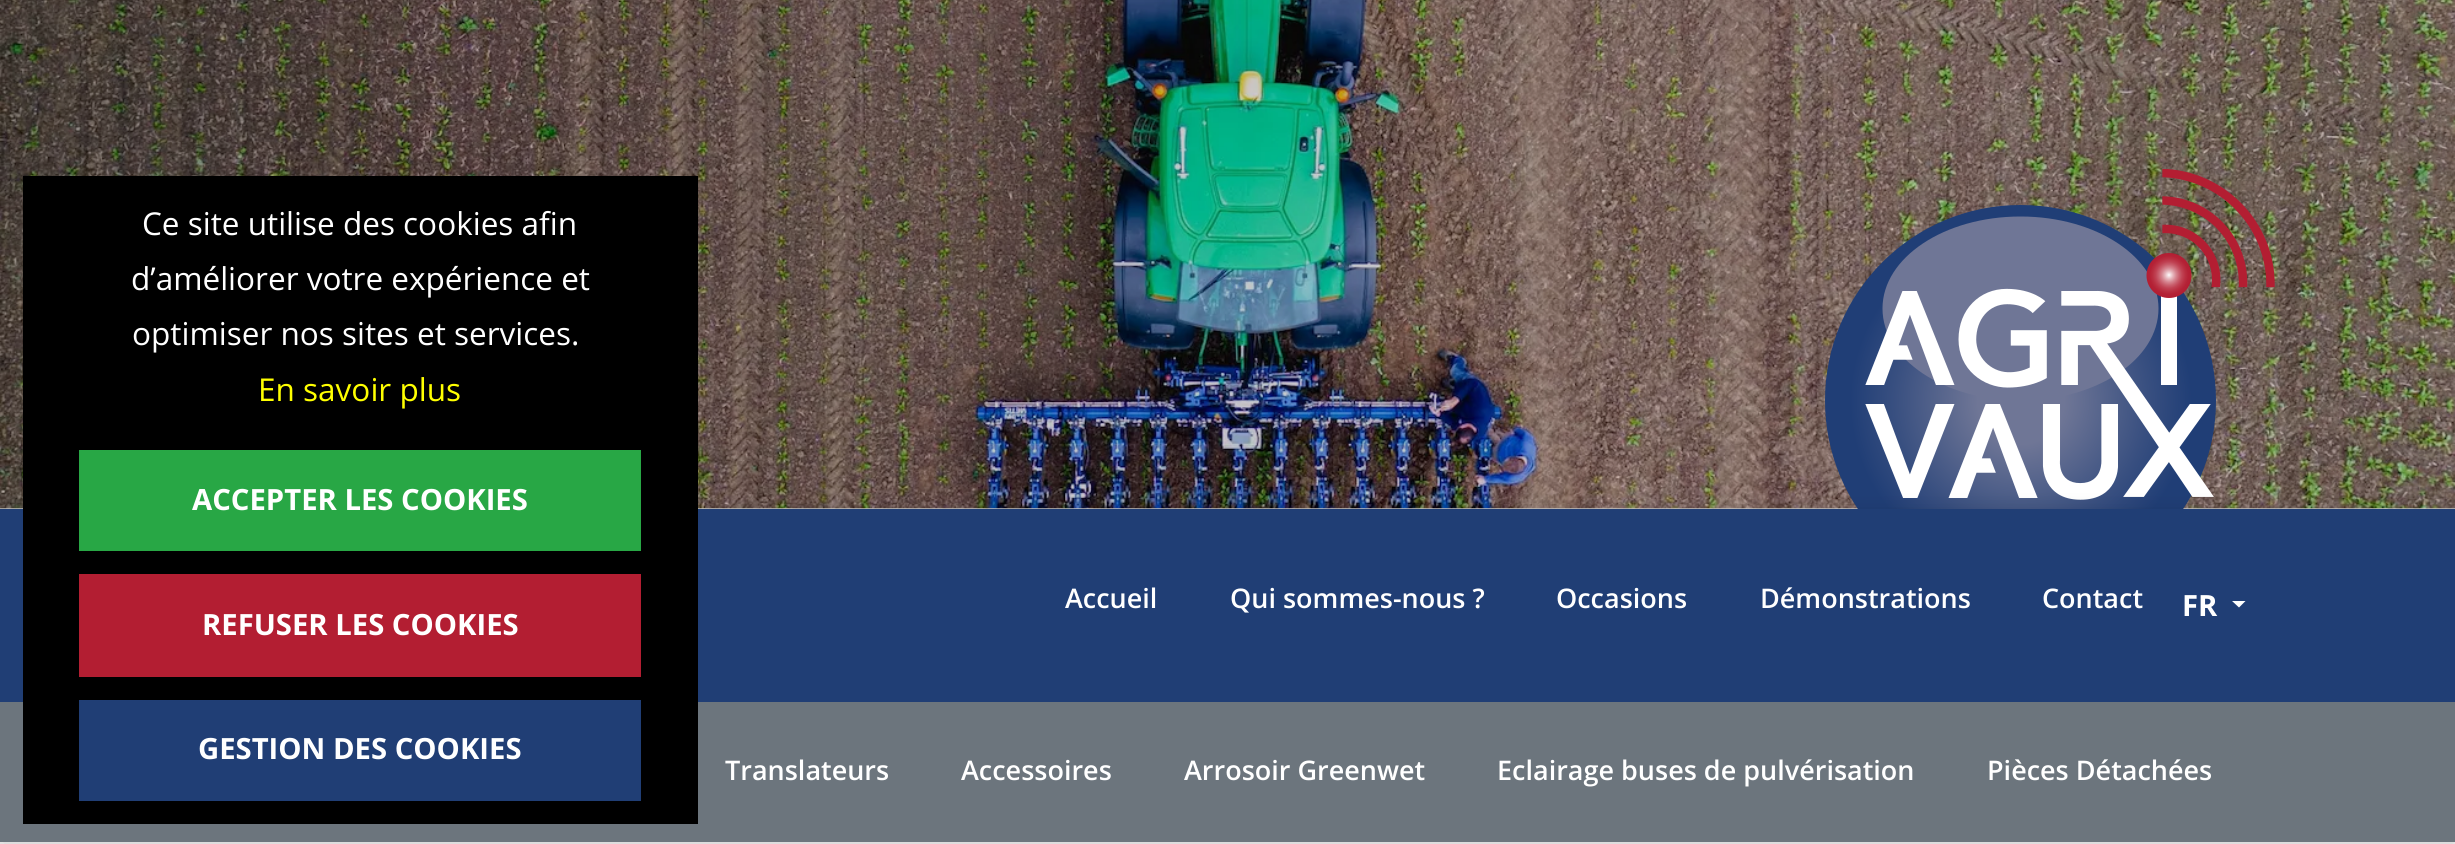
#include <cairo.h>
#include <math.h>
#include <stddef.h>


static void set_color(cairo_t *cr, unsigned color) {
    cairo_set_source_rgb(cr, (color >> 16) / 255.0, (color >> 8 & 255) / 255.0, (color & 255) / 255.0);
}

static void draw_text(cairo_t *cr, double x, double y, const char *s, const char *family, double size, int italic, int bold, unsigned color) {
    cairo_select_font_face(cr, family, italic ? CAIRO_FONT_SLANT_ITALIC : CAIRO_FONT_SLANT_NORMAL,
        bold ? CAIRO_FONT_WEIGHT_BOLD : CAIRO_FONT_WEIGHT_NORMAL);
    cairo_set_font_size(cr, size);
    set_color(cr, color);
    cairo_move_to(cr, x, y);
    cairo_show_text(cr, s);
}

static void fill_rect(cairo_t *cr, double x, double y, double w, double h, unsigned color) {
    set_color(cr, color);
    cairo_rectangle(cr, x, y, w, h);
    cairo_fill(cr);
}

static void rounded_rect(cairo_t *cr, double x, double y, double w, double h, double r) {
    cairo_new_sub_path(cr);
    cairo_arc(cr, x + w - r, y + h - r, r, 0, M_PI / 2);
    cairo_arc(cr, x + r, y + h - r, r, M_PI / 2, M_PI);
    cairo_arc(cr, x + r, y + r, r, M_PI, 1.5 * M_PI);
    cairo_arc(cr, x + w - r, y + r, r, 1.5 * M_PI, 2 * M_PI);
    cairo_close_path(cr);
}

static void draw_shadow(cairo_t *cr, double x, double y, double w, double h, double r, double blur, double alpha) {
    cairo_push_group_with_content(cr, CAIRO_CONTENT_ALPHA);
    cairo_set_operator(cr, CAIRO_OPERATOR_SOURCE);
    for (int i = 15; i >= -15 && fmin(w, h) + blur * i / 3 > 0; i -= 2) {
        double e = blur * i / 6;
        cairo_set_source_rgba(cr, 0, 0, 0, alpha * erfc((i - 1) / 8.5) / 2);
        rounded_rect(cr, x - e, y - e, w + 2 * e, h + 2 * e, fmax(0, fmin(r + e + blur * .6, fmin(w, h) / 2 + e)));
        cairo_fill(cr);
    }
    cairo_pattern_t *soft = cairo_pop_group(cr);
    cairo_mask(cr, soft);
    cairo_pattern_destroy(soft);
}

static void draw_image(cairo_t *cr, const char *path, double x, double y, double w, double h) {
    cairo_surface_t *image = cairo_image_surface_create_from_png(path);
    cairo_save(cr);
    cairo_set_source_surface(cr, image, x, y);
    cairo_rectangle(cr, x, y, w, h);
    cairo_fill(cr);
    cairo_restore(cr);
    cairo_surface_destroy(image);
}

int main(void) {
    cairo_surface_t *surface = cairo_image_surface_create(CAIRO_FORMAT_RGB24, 2455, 844);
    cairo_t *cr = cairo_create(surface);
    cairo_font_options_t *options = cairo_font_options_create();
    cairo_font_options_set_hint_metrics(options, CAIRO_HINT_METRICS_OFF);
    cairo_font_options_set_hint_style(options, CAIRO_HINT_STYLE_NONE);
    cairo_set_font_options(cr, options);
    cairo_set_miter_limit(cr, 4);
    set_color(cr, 0xCCCCCC);
    cairo_paint(cr);
    draw_image(cr, "assets/img1.png", 0, 0, 2455, 509);
    draw_image(cr, "assets/img2.png", 1825, 169, 450, 340);
    fill_rect(cr, 0, 842, 2455, 2, 0xF4F4F4);
    set_color(cr, 0x000000);
    draw_shadow(cr, 0, 513, 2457, 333, 0, 11, 0.15);
    fill_rect(cr, 0, 509, 2455, 193, 0x203E75);
    fill_rect(cr, 0, 702, 2455, 140, 0x6C757D);
    fill_rect(cr, 23, 176, 675, 648, 0x000000);
    draw_text(cr, 142, 235, "Ce site utilise des cookies afin", "Open Sans", 31.5, 0, 0, 0xFFFFFF);
    draw_text(cr, 131, 290, "d’améliorer votre expérience et", "Open Sans", 31.5, 0, 0, 0xFFFFFF);
    draw_text(cr, 132, 345, "optimiser nos sites et services.", "Open Sans", 31.5, 0, 0, 0xFFFFFF);
    draw_text(cr, 258, 401, "En savoir plus", "Open Sans", 31.5, 0, 0, 0xFFFF00);
    fill_rect(cr, 79, 450, 562, 101, 0x28A745);
    draw_text(cr, 192, 510, "ACCEPTER LES COOKIES", "Open Sans", 29.25, 0, 1, 0xFFFFFF);
    fill_rect(cr, 79, 574, 562, 103, 0xB31E32);
    draw_text(cr, 202, 635, "REFUSER LES COOKIES", "Open Sans", 29.25, 0, 1, 0xFFFFFF);
    fill_rect(cr, 79, 700, 562, 101, 0x203E75);
    draw_text(cr, 198, 759, "GESTION DES COOKIES", "Open Sans", 29.25, 0, 1, 0xFFFFFF);
    draw_text(cr, 1065, 608, "Accueil", "Open Sans SemiBold", 27, 0, 0, 0xFFFFFF);
    draw_text(cr, 1230, 608, "Qui sommes-nous ?", "Open Sans SemiBold", 27, 0, 0, 0xFFFFFF);
    draw_text(cr, 1556, 608, "Occasions", "Open Sans SemiBold", 27, 0, 0, 0xFFFFFF);
    draw_text(cr, 1760, 608, "Démonstrations", "Open Sans SemiBold", 27, 0, 0, 0xFFFFFF);
    draw_text(cr, 2042, 608, "Contact", "Open Sans SemiBold", 27, 0, 0, 0xFFFFFF);
    draw_text(cr, 2182, 616, "FR", "Open Sans", 29.25, 0, 1, 0xFFFFFF);
    cairo_new_path(cr);
    cairo_move_to(cr, 2232, 601);
    cairo_line_to(cr, 2245.5, 601);
    cairo_line_to(cr, 2239, 607.5);
    cairo_close_path(cr);
    cairo_fill(cr);
    draw_text(cr, 725, 780, "Translateurs", "Open Sans SemiBold", 27, 0, 0, 0xFFFFFF);
    draw_text(cr, 961, 780, "Accessoires", "Open Sans SemiBold", 27, 0, 0, 0xFFFFFF);
    draw_text(cr, 1184, 780, "Arrosoir Greenwet", "Open Sans SemiBold", 27, 0, 0, 0xFFFFFF);
    draw_text(cr, 1497, 780, "Eclairage buses de pulvérisation", "Open Sans SemiBold", 27, 0, 0, 0xFFFFFF);
    draw_text(cr, 1987, 780, "Pièces Détachées", "Open Sans SemiBold", 27, 0, 0, 0xFFFFFF);
    cairo_surface_write_to_png(surface, "output.png");
    cairo_font_options_destroy(options);
    cairo_destroy(cr);
    cairo_surface_destroy(surface);
    return 0;
}
